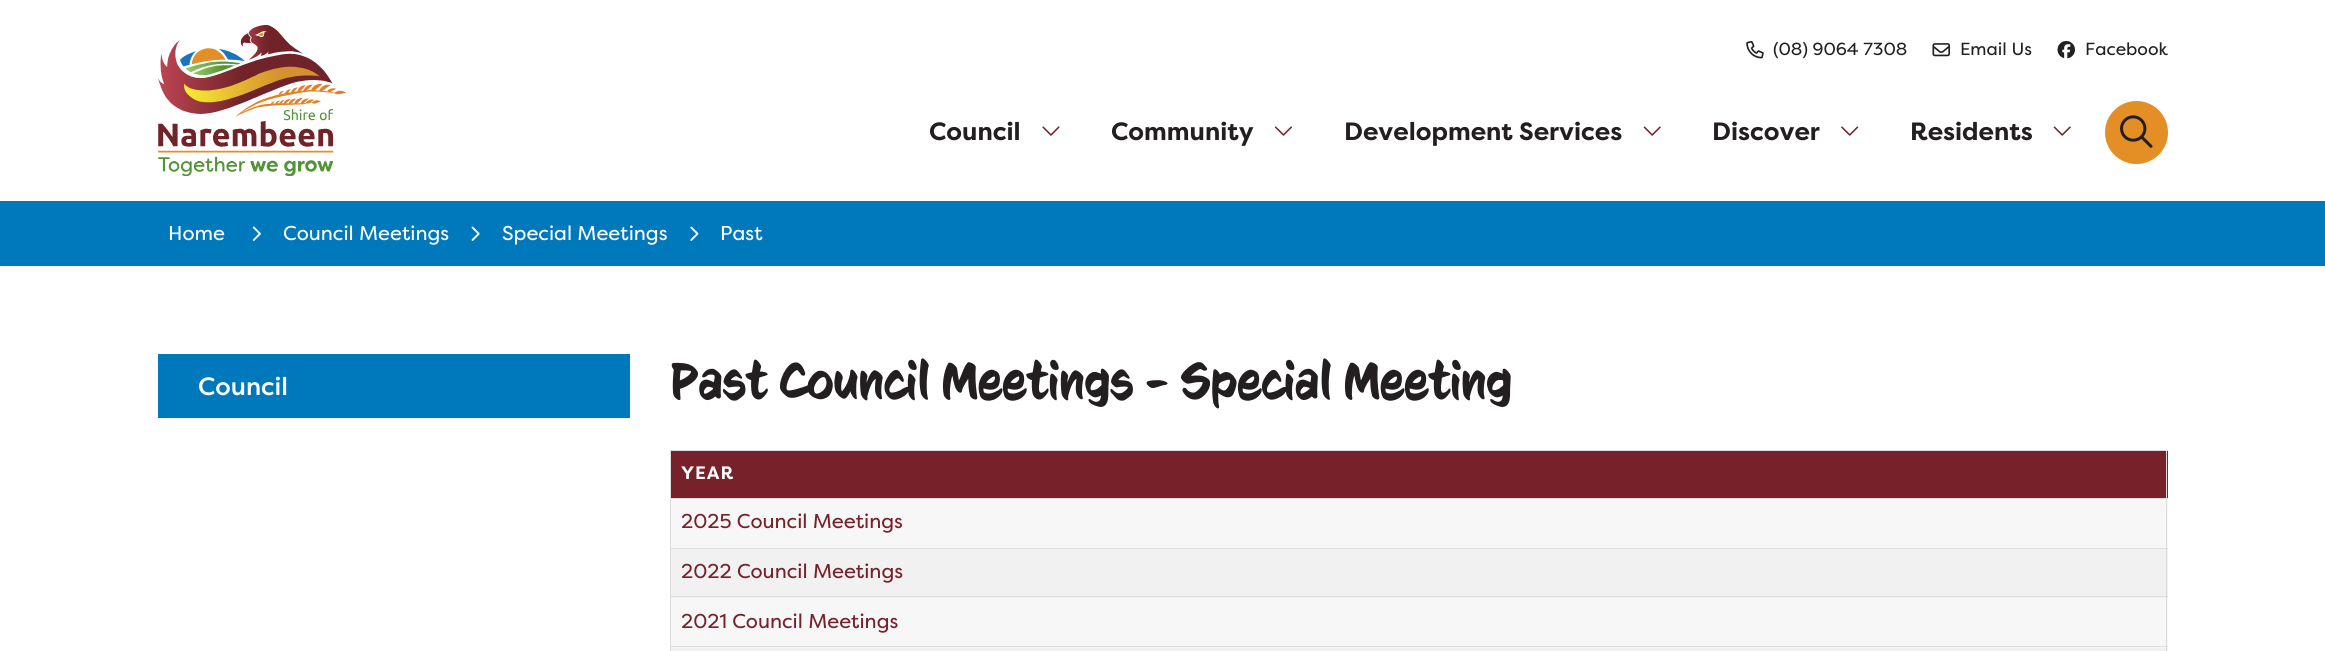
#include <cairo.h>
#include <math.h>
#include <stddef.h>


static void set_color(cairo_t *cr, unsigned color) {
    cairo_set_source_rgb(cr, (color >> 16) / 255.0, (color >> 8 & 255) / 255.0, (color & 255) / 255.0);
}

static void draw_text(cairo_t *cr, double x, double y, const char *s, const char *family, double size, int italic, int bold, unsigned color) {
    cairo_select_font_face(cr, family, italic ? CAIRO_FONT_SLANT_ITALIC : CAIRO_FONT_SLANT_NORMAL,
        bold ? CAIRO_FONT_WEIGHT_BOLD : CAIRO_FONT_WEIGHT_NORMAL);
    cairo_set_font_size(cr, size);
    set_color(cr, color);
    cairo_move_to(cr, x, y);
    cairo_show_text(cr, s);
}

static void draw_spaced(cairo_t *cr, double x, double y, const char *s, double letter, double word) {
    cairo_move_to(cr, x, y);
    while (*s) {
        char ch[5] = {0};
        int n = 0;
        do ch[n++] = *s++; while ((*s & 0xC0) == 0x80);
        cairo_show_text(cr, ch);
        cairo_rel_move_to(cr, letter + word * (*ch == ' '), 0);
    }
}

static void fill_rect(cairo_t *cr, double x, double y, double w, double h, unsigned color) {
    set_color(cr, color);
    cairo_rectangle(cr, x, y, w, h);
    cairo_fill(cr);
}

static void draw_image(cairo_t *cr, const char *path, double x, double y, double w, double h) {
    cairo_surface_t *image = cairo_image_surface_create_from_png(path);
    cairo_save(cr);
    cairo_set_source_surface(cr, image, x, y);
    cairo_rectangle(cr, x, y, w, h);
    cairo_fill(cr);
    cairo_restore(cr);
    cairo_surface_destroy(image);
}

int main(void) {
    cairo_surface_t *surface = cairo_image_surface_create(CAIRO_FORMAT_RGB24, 2325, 651);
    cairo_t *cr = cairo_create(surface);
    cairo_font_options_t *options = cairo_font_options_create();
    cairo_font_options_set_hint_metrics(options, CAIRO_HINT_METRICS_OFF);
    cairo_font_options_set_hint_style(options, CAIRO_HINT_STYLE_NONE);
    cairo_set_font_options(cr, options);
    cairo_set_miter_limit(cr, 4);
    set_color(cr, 0xFFFFFF);
    cairo_paint(cr);
    draw_image(cr, "assets/img1.png", 158, 25, 188, 151);
    draw_image(cr, "assets/img2.png", 1746, 40, 18, 19);
    draw_text(cr, 1773, 55, "(08) 9064 7308", "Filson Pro", 17.5, 0, 0, 0x231F20);
    draw_image(cr, "assets/img3.png", 1932, 43, 18, 14);
    draw_text(cr, 1960, 55, "Email Us", "Filson Pro", 17.5, 0, 0, 0x231F20);
    draw_image(cr, "assets/img4.png", 2057, 40, 18, 19);
    draw_text(cr, 2085, 55, "Facebook", "Filson Pro", 17.5, 0, 0, 0x231F20);
    draw_text(cr, 929, 140, "Council", "Filson Pro", 25, 0, 1, 0x231F20);
    draw_image(cr, "assets/img5.png", 1042, 126, 18, 10);
    draw_text(cr, 1111, 140, "Community", "Filson Pro", 25, 0, 1, 0x231F20);
    draw_image(cr, "assets/img6.png", 1274, 126, 18, 10);
    draw_text(cr, 1344, 140, "Development Services", "Filson Pro", 25, 0, 1, 0x231F20);
    draw_image(cr, "assets/img7.png", 1643, 126, 18, 10);
    draw_text(cr, 1712, 140, "Discover", "Filson Pro", 25, 0, 1, 0x231F20);
    draw_image(cr, "assets/img8.png", 1841, 126, 18, 10);
    draw_text(cr, 1910, 140, "Residents", "Filson Pro", 25, 0, 1, 0x231F20);
    draw_image(cr, "assets/img7.png", 2053, 126, 18, 10);
    set_color(cr, 0xE48F25);
    cairo_arc(cr, 2136.5, 132.5, 31.5, 0, 2 * M_PI);
    cairo_fill(cr);
    draw_image(cr, "assets/img9.png", 2120, 115, 33, 33);
    fill_rect(cr, 0, 201, 2325, 65, 0x0079BC);
    draw_text(cr, 168, 240, "Home", "Filson Pro", 20, 0, 0, 0xFFFFFF);
    draw_image(cr, "assets/img10.png", 252, 226, 9, 15);
    draw_text(cr, 283, 240, "Council Meetings", "Filson Pro", 20, 0, 0, 0xFFFFFF);
    draw_image(cr, "assets/img11.png", 471, 226, 9, 15);
    draw_text(cr, 502, 240, "Special Meetings", "Filson Pro", 20, 0, 0, 0xFFFFFF);
    draw_image(cr, "assets/img12.png", 690, 226, 9, 15);
    draw_text(cr, 720, 240, "Past", "Filson Pro", 20, 0, 0, 0xFFFFFF);
    fill_rect(cr, 158, 354, 472, 64, 0x0079BC);
    draw_text(cr, 198, 395, "Council", "Filson Pro Medium", 25, 0, 0, 0xFFFFFF);
    draw_text(cr, 670, 399, "Past Council Meetings - Special Meeting", "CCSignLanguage", 51.25, 0, 0, 0x231F20);
    fill_rect(cr, 670, 450, 1498, 1, 0xDDDDDD);
    fill_rect(cr, 671, 451, 1497, 47, 0x77212A);
    fill_rect(cr, 671, 499, 1497, 49, 0xF7F7F7);
    fill_rect(cr, 671, 549, 1497, 49, 0xF1F1F1);
    fill_rect(cr, 671, 598, 1497, 50, 0xF7F7F7);
    fill_rect(cr, 671, 648, 1497, 3, 0xF1F1F1);
    fill_rect(cr, 2166, 450, 1, 201, 0xDDDDDD);
    fill_rect(cr, 670, 450, 1, 201, 0xDDDDDD);
    cairo_select_font_face(cr, "Filson Pro", CAIRO_FONT_SLANT_NORMAL, CAIRO_FONT_WEIGHT_BOLD);
    cairo_set_font_size(cr, 18);
    set_color(cr, 0xFFFFFF);
    draw_spaced(cr, 681, 479, "YEAR", 1, 0);
    fill_rect(cr, 670, 498, 1498, 1, 0xDDDDDD);
    draw_text(cr, 681, 528, "2025 Council Meetings", "Filson Pro", 20, 0, 0, 0x77212A);
    fill_rect(cr, 670, 548, 1498, 1, 0xDDDDDD);
    draw_text(cr, 681, 578, "2022 Council Meetings", "Filson Pro", 20, 0, 0, 0x77212A);
    fill_rect(cr, 670, 596, 1498, 1, 0xDDDDDD);
    draw_text(cr, 681, 628, "2021 Council Meetings", "Filson Pro", 20, 0, 0, 0x77212A);
    fill_rect(cr, 670, 646, 1498, 1, 0xDDDDDD);
    cairo_surface_write_to_png(surface, "output.png");
    cairo_font_options_destroy(options);
    cairo_destroy(cr);
    cairo_surface_destroy(surface);
    return 0;
}
